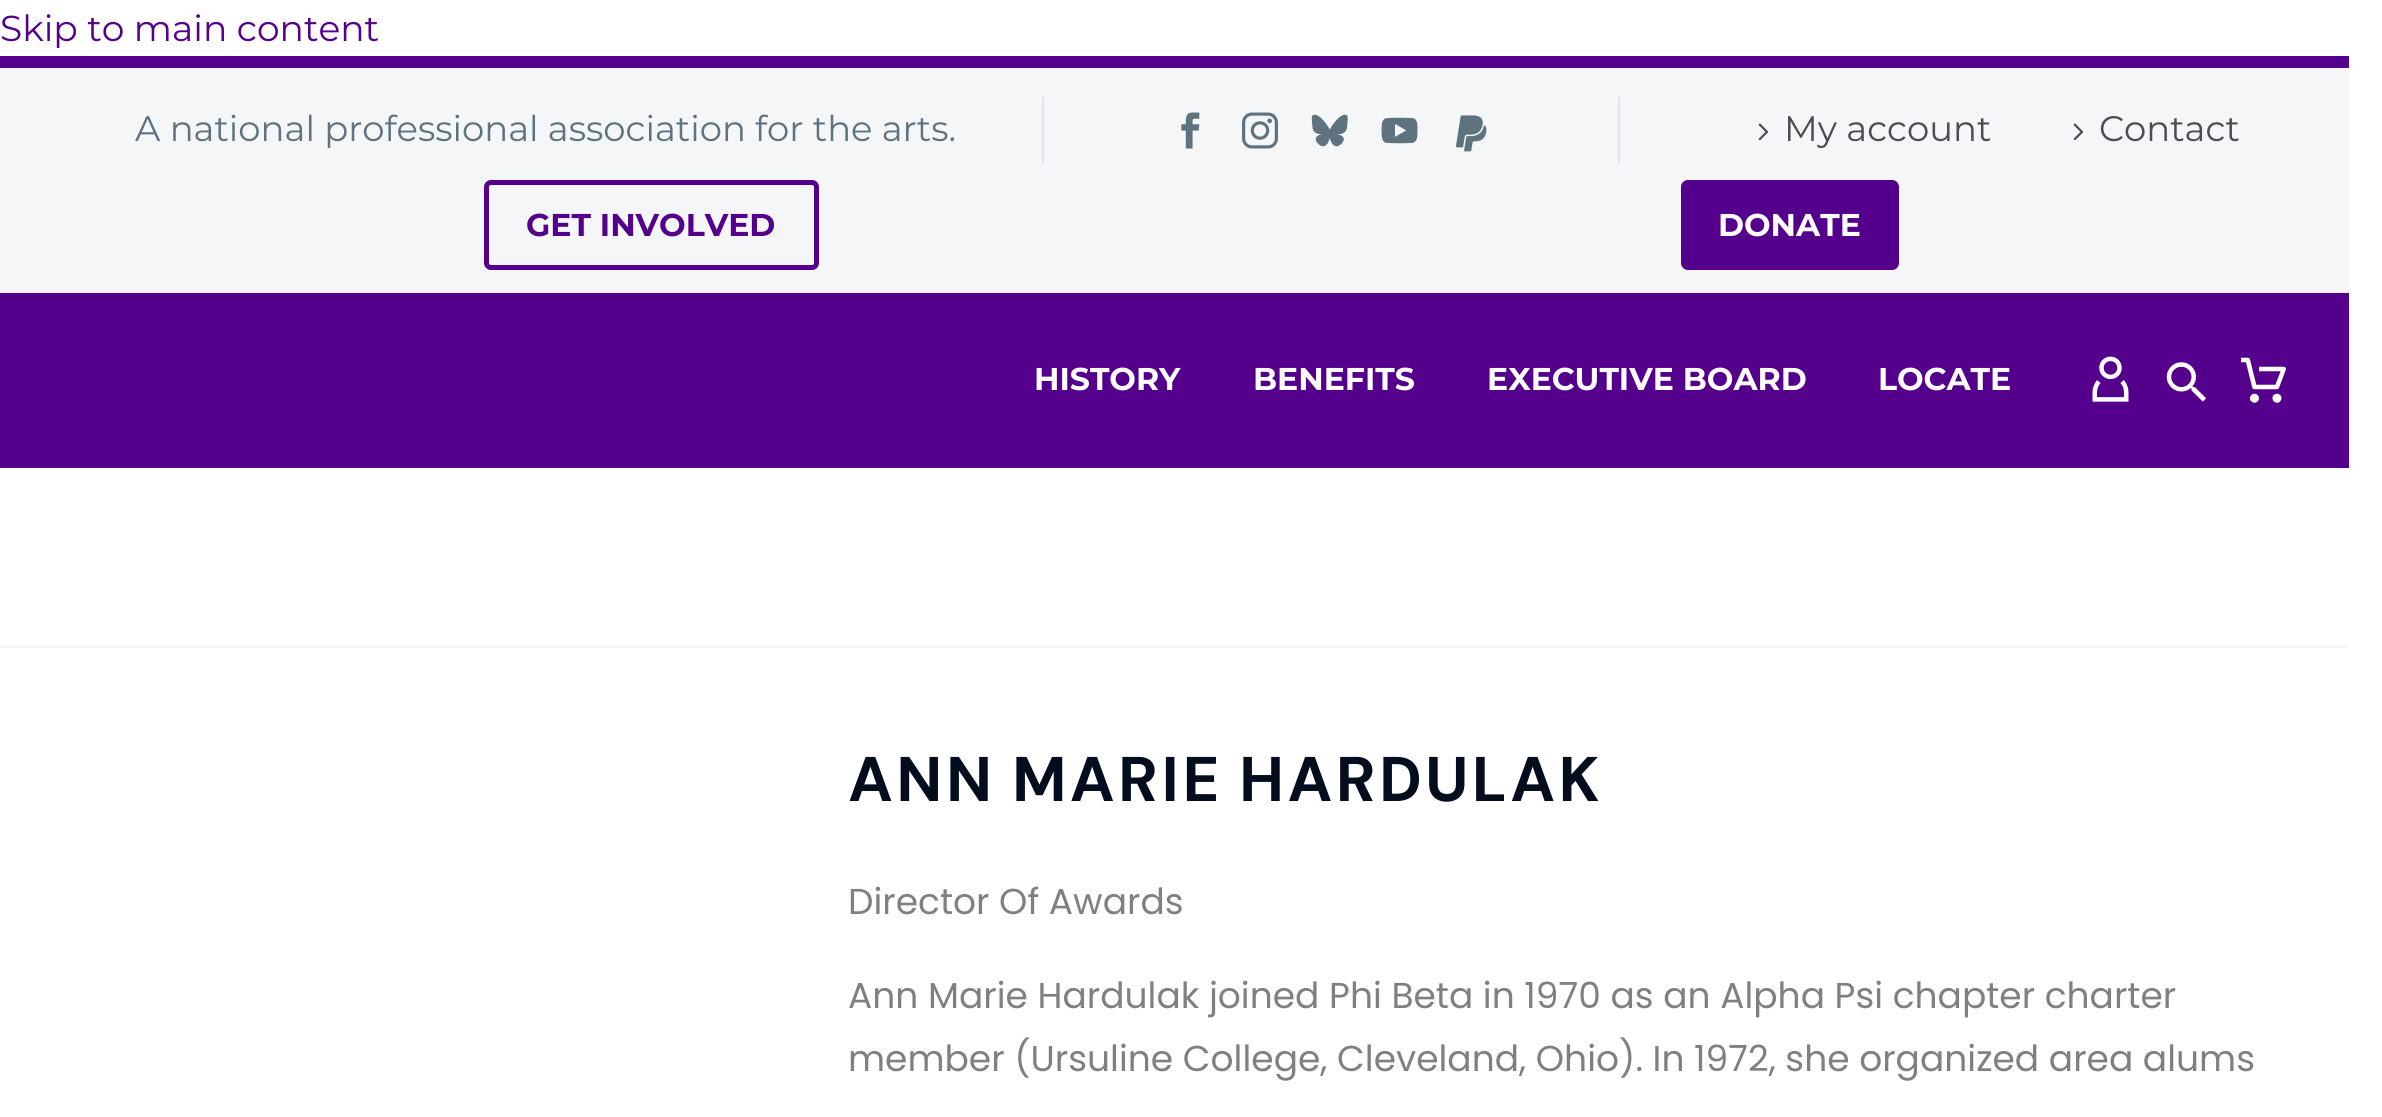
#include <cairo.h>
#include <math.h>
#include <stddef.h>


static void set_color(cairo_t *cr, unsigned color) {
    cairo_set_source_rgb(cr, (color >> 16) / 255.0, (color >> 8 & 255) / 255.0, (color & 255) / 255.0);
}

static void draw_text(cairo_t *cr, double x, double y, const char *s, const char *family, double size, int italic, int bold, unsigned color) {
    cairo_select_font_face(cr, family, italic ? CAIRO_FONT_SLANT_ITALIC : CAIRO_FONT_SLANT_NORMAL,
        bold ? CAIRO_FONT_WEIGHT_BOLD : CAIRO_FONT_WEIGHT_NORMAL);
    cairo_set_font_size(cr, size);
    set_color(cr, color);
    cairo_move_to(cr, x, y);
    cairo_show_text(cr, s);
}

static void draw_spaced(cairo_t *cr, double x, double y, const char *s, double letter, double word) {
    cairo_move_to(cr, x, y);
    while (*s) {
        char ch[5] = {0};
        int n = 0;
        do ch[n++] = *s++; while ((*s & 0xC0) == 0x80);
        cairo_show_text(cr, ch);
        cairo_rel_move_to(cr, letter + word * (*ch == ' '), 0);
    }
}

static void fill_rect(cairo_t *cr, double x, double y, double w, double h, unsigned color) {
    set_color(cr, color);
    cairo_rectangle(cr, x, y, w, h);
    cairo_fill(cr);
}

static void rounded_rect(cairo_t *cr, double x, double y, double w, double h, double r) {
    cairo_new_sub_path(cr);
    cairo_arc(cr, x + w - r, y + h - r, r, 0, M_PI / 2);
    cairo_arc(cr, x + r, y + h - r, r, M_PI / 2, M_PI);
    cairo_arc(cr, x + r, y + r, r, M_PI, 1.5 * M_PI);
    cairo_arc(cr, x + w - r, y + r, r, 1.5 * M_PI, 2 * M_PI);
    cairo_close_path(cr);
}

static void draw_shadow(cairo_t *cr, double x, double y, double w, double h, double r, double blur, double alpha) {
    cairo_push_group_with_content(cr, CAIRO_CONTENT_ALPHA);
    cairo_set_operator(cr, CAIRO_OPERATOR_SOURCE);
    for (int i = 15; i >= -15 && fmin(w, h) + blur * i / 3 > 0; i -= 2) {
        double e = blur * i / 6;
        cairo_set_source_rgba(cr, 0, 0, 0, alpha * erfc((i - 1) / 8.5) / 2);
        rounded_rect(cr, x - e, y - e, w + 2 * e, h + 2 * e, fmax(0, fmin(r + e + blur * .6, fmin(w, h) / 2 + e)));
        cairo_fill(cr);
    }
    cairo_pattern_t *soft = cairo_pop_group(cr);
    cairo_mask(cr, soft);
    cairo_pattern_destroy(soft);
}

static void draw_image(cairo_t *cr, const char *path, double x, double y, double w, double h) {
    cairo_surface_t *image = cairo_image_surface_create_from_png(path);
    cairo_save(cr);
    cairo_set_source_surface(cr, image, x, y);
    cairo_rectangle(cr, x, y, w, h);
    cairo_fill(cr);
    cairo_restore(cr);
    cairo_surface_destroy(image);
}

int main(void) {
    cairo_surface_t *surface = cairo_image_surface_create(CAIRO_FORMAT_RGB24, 2382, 1117);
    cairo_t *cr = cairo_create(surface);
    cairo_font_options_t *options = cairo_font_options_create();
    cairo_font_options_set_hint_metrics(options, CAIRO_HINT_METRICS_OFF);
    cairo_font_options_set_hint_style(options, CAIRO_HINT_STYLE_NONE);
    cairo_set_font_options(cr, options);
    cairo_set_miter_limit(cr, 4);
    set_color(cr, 0xFFFFFF);
    cairo_paint(cr);
    draw_text(cr, 0, 41, "Skip to main content", "Montserrat", 36, 0, 0, 0x54008C);
    fill_rect(cr, 0, 293, 2349, 175, 0x54008C);
    fill_rect(cr, 0, 68, 2349, 225, 0xF4F6F7);
    fill_rect(cr, 0, 56, 2349, 12, 0x54008C);
    draw_text(cr, 135, 141, "A national professional association for the arts.", "Montserrat", 35.4, 0, 0, 0x5F727F);
    fill_rect(cr, 1042, 97, 2, 67, 0xDFE5E8);
    draw_image(cr, "assets/img1.png", 1181, 112, 19, 37);
    draw_image(cr, "assets/img2.png", 1242, 112, 36, 37);
    draw_image(cr, "assets/img3.png", 1311, 114, 37, 33);
    draw_image(cr, "assets/img4.png", 1381, 117, 37, 27);
    draw_image(cr, "assets/img5.png", 1455, 115, 32, 37);
    fill_rect(cr, 1618, 97, 2, 67, 0xDFE5E8);
    draw_image(cr, "assets/img6.png", 1758, 123, 11, 18);
    draw_text(cr, 1784, 141, "My account", "Montserrat", 35.4, 0, 0, 0x494E52);
    draw_image(cr, "assets/img6.png", 2073, 123, 11, 18);
    draw_text(cr, 2099, 141, "Contact", "Montserrat", 35.4, 0, 0, 0x494E52);
    rounded_rect(cr, 486.5, 182.5, 330, 85, 4.5);
    set_color(cr, 0x54008C);
    cairo_set_line_width(cr, 5);
    cairo_stroke(cr);
    draw_text(cr, 526, 236, "GET INVOLVED", "Montserrat", 31.5, 0, 1, 0x54008C);
    rounded_rect(cr, 1681, 180, 218, 90, 7);
    cairo_fill(cr);
    draw_text(cr, 1718, 236, "DONATE", "Montserrat", 31.5, 0, 1, 0xFFFFFF);
    draw_text(cr, 1034, 390, "HISTORY", "Montserrat", 31.5, 0, 1, 0xFFFFFF);
    draw_text(cr, 1253, 390, "BENEFITS", "Montserrat", 31.5, 0, 1, 0xFFFFFF);
    draw_text(cr, 1487, 390, "EXECUTIVE BOARD", "Montserrat", 31.5, 0, 1, 0xFFFFFF);
    draw_text(cr, 1878, 390, "LOCATE", "Montserrat", 31.5, 0, 1, 0xFFFFFF);
    draw_image(cr, "assets/img7.png", 2092, 356, 37, 46);
    draw_image(cr, "assets/img8.png", 2166, 362, 40, 40);
    draw_image(cr, "assets/img9.png", 2241, 357, 45, 46);
    cairo_save(cr);
    cairo_rectangle(cr, 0, 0, 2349, 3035);
    cairo_clip(cr);
    cairo_rectangle(cr, 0, 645, 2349, 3);
    cairo_clip(cr);
    set_color(cr, 0x000000);
    draw_shadow(cr, 0, 650, 2349, 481, 0, 4.5, 0.16);
    cairo_restore(cr);
    cairo_select_font_face(cr, "DM Sans", CAIRO_FONT_SLANT_NORMAL, CAIRO_FONT_WEIGHT_BOLD);
    cairo_set_font_size(cr, 63);
    set_color(cr, 0x030D1E);
    draw_spaced(cr, 848, 801, "ANN MARIE HARDULAK", 3.1, -2);
    draw_text(cr, 848, 914, "Director Of Awards", "Poppins", 36, 0, 0, 0x808080);
    draw_text(cr, 848, 1008, "Ann Marie Hardulak joined Phi Beta in 1970 as an Alpha Psi chapter charter", "Poppins", 36, 0, 0, 0x808080);
    draw_text(cr, 848, 1071, "member (Ursuline College, Cleveland, Ohio). In 1972, she organized area alums", "Poppins", 36, 0, 0, 0x808080);
    cairo_surface_write_to_png(surface, "output.png");
    cairo_font_options_destroy(options);
    cairo_destroy(cr);
    cairo_surface_destroy(surface);
    return 0;
}
